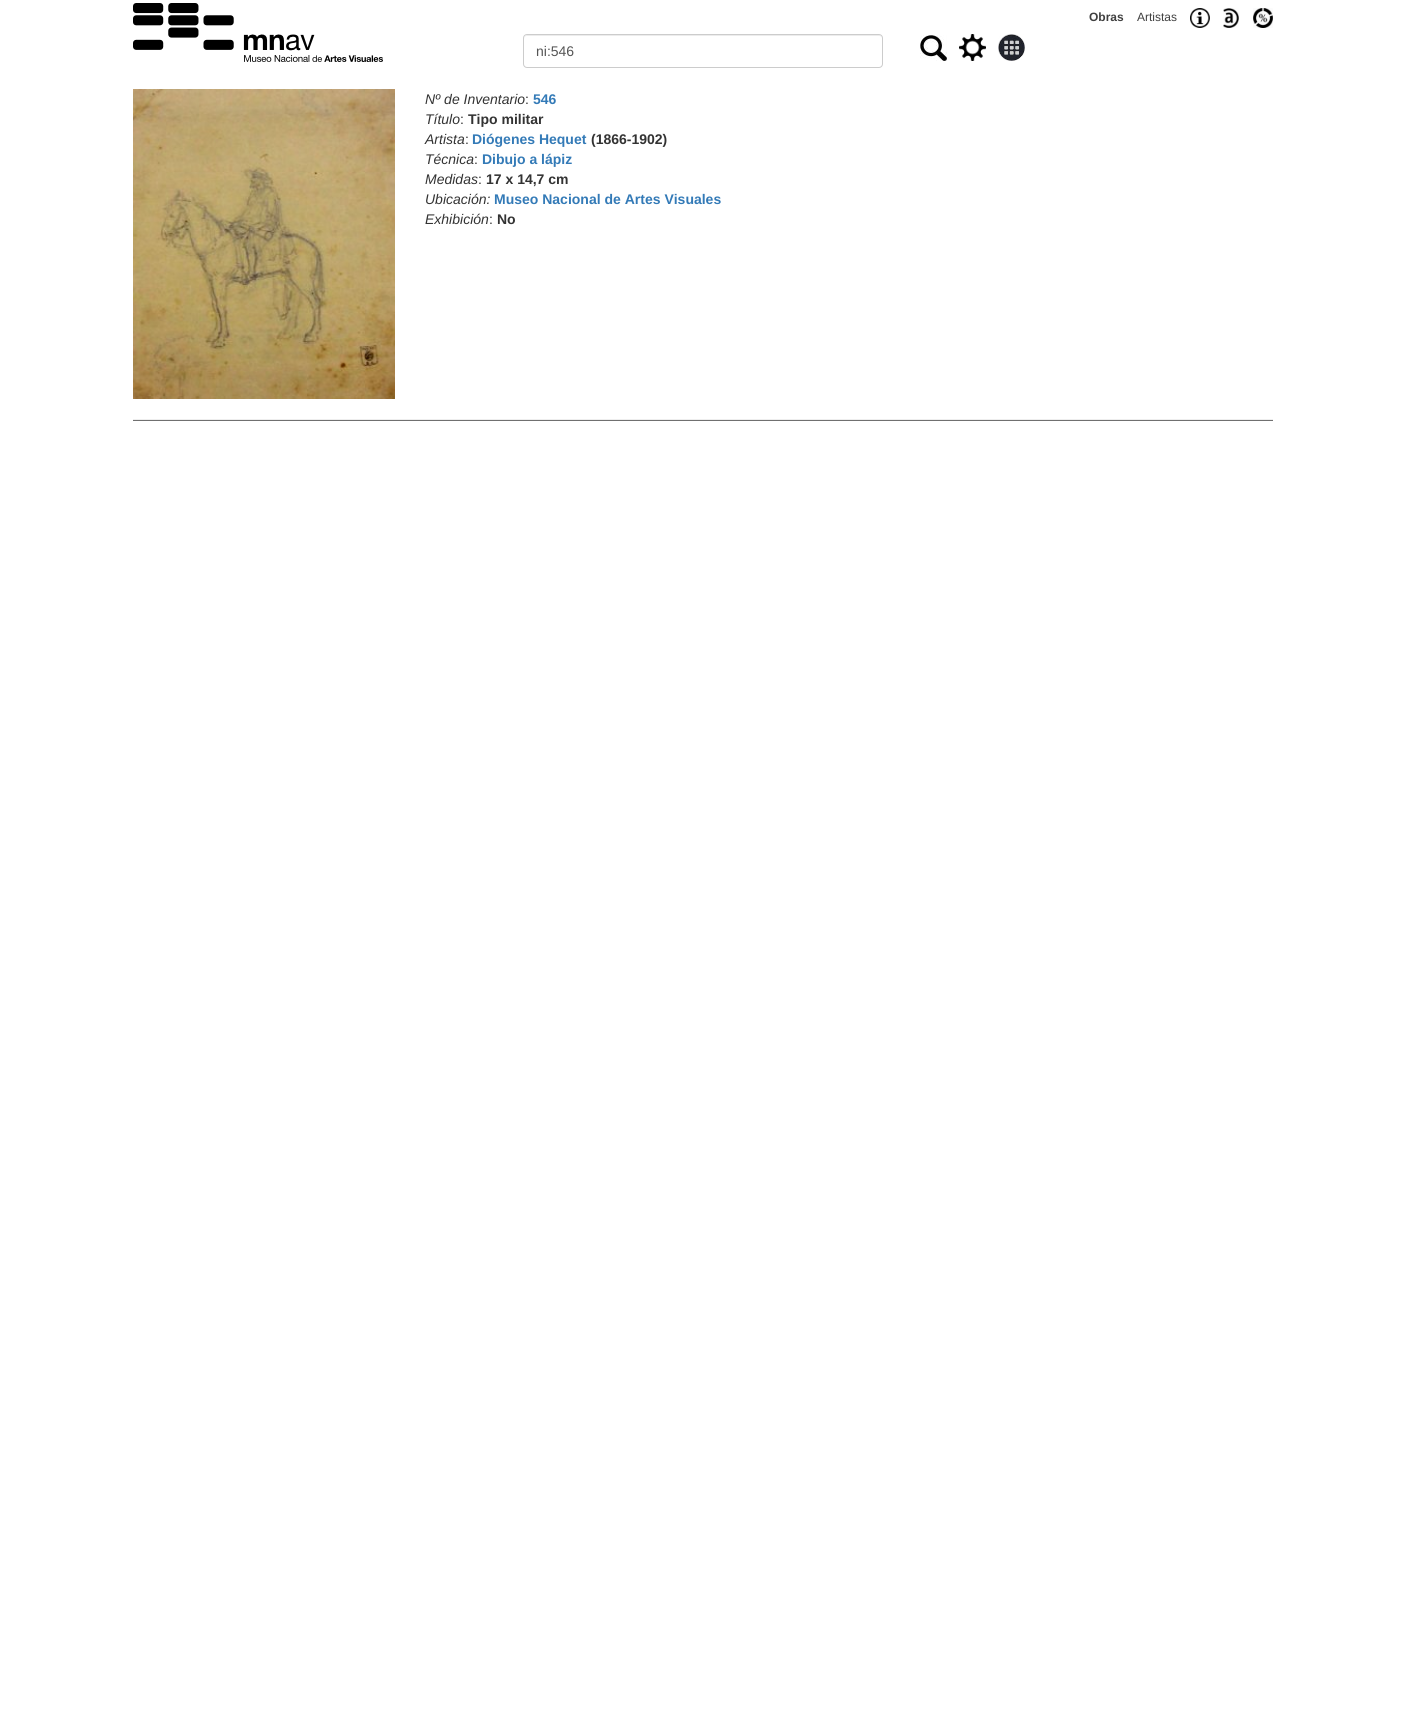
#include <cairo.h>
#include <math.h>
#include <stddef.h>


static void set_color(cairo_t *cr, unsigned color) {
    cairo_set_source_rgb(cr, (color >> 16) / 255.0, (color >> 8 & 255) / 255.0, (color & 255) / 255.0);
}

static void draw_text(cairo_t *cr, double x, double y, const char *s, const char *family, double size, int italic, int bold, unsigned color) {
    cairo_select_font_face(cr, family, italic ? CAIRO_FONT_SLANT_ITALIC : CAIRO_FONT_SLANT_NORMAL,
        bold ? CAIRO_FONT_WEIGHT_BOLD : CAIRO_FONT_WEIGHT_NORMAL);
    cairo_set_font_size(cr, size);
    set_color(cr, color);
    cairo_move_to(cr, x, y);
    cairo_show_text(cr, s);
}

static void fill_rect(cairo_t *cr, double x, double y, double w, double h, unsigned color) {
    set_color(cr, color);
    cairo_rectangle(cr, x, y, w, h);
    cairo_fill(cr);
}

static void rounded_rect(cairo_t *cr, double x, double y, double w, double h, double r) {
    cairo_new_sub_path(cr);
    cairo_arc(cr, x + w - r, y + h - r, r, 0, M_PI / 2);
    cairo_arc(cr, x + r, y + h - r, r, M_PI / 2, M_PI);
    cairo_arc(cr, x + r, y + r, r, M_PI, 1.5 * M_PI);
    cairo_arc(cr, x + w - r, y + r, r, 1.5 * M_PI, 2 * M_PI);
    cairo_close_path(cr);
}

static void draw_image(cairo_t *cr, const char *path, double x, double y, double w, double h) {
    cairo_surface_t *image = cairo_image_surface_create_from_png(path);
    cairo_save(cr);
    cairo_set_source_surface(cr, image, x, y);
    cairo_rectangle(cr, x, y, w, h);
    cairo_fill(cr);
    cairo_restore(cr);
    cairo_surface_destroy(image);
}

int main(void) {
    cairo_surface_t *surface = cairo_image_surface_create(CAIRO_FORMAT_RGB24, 1405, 1733);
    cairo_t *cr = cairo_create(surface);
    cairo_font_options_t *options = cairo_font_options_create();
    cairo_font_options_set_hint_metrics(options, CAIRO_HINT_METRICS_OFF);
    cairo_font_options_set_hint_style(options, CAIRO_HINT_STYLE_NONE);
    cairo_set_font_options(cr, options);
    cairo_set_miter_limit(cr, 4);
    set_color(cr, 0xFFFFFF);
    cairo_paint(cr);
    draw_image(cr, "assets/img1.png", 133, 3, 250, 59);
    draw_text(cr, 1089, 21, "Obras", "Liberation Sans", 12, 0, 1, 0x404040);
    draw_text(cr, 1137, 21, "Artistas", "Liberation Sans", 12, 0, 0, 0x404040);
    draw_image(cr, "assets/img2.png", 1190, 8, 20, 20);
    draw_image(cr, "assets/img3.png", 1223, 8, 16, 20);
    draw_image(cr, "assets/img4.png", 1253, 8, 20, 20);
    set_color(cr, 0xECECEC);
    cairo_new_path(cr);
    cairo_move_to(cr, 527, 36);
    cairo_line_to(cr, 879, 36);
    cairo_curve_to(cr, 881, 36, 882, 37, 882, 39);
    cairo_curve_to(cr, 882, 37, 881, 35, 879, 35);
    cairo_line_to(cr, 527, 35);
    cairo_line_to(cr, 525, 36);
    cairo_line_to(cr, 524, 39);
    cairo_curve_to(cr, 524, 37, 525, 36, 527, 36);
    cairo_close_path(cr);
    cairo_fill(cr);
    rounded_rect(cr, 523.5, 34.5, 359, 33, 3.5);
    set_color(cr, 0xCCCCCC);
    cairo_set_line_width(cr, 1);
    cairo_stroke(cr);
    draw_text(cr, 536, 56, "ni:546", "Liberation Sans", 14, 0, 0, 0x555555);
    draw_image(cr, "assets/img5.png", 920, 35, 27, 26);
    draw_image(cr, "assets/img6.png", 959, 34, 27, 27);
    draw_image(cr, "assets/img7.png", 998, 34, 27, 27);
    draw_image(cr, "assets/img8.png", 133, 89, 262, 310);
    draw_text(cr, 425, 104, "Nº de Inventario", "Liberation Sans", 14, 1, 0, 0x333333);
    draw_text(cr, 525, 104, ":", "Liberation Sans", 14, 0, 0, 0x333333);
    draw_text(cr, 533, 104, "546", "Liberation Sans", 14, 0, 1, 0x337AB7);
    draw_text(cr, 425, 124, "Título", "Liberation Sans", 14, 1, 0, 0x333333);
    draw_text(cr, 460, 124, ":", "Liberation Sans", 14, 0, 0, 0x333333);
    draw_text(cr, 468, 124, "Tipo militar", "Liberation Sans", 14, 0, 1, 0x333333);
    draw_text(cr, 425, 144, "Artista", "Liberation Sans", 14, 1, 0, 0x333333);
    draw_text(cr, 465, 144, ":", "Liberation Sans", 14, 0, 0, 0x333333);
    draw_text(cr, 472, 144, "Diógenes Hequet", "Liberation Sans", 14, 0, 1, 0x337AB7);
    draw_text(cr, 591, 144, "(1866-1902)", "Liberation Sans", 14, 0, 1, 0x333333);
    draw_text(cr, 425, 164, "Técnica", "Liberation Sans", 14, 1, 0, 0x333333);
    draw_text(cr, 474, 164, ":", "Liberation Sans", 14, 0, 0, 0x333333);
    draw_text(cr, 482, 164, "Dibujo a lápiz", "Liberation Sans", 14, 0, 1, 0x337AB7);
    draw_text(cr, 425, 184, "Medidas", "Liberation Sans", 14, 1, 0, 0x333333);
    draw_text(cr, 478, 184, ":", "Liberation Sans", 14, 0, 0, 0x333333);
    draw_text(cr, 486, 184, "17 x 14,7 cm", "Liberation Sans", 14, 0, 1, 0x333333);
    draw_text(cr, 425, 204, "Ubicación:", "Liberation Sans", 14, 1, 0, 0x333333);
    draw_text(cr, 494, 204, "Museo Nacional de Artes Visuales", "Liberation Sans", 14, 0, 1, 0x337AB7);
    draw_text(cr, 425, 224, "Exhibición", "Liberation Sans", 14, 1, 0, 0x333333);
    draw_text(cr, 489, 224, ":", "Liberation Sans", 14, 0, 0, 0x333333);
    draw_text(cr, 497, 224, "No", "Liberation Sans", 14, 0, 1, 0x333333);
    fill_rect(cr, 133, 420, 1140, 1, 0x707070);
    fill_rect(cr, 133, 419, 1140, 1, 0xEEEEEE);
    cairo_surface_write_to_png(surface, "output.png");
    cairo_font_options_destroy(options);
    cairo_destroy(cr);
    cairo_surface_destroy(surface);
    return 0;
}
